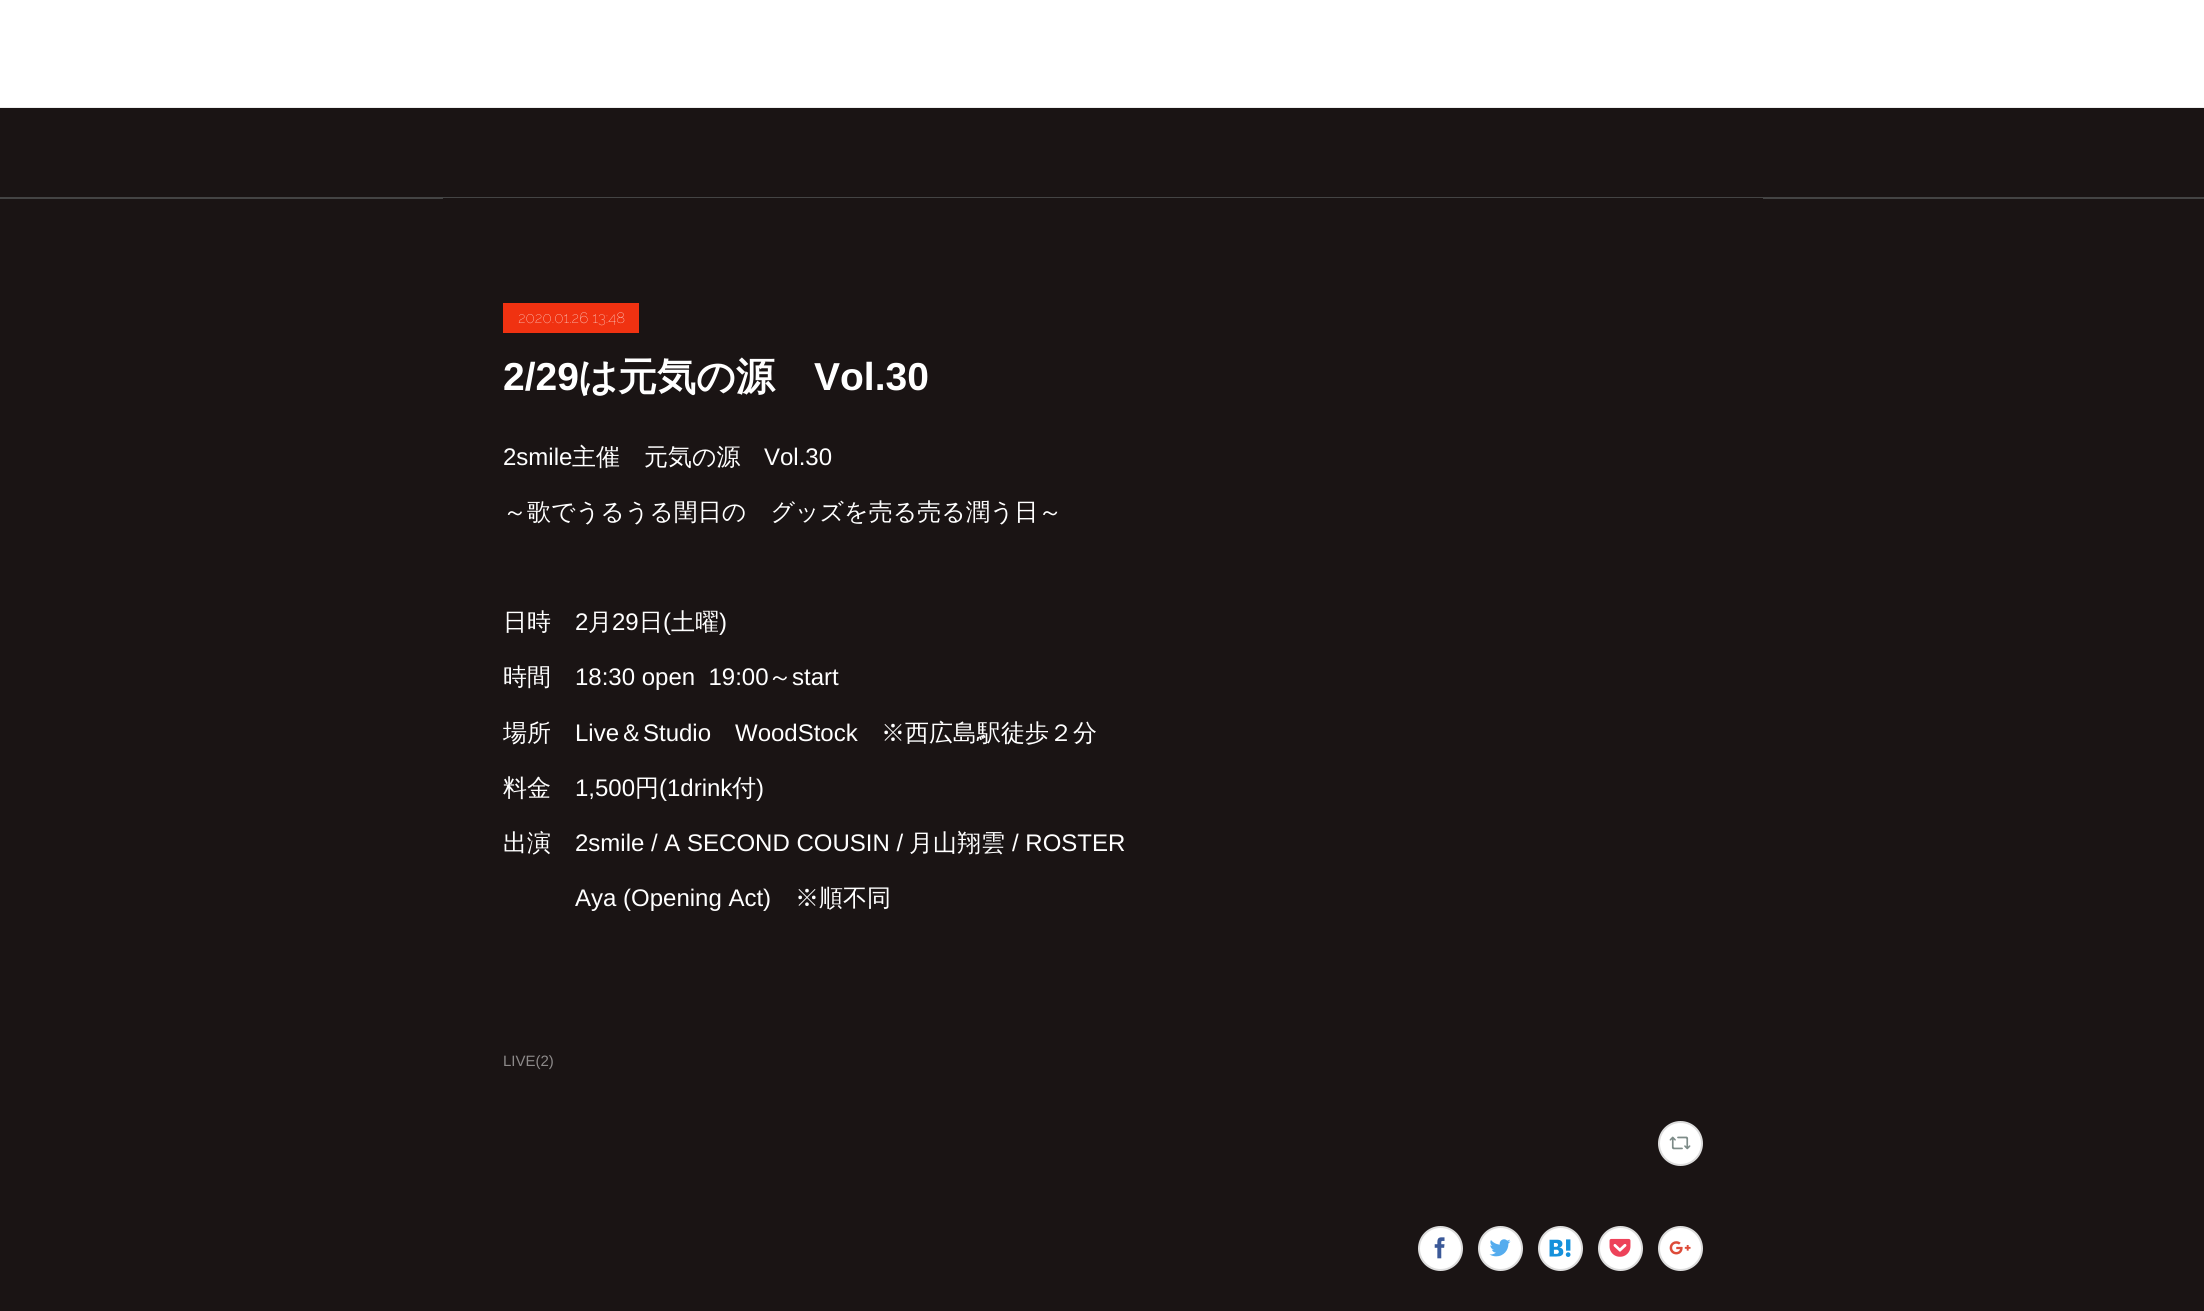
#include <cairo.h>
#include <math.h>
#include <stddef.h>


static void set_color(cairo_t *cr, unsigned color) {
    cairo_set_source_rgb(cr, (color >> 16) / 255.0, (color >> 8 & 255) / 255.0, (color & 255) / 255.0);
}

static void draw_text(cairo_t *cr, double x, double y, const char *s, const char *family, double size, int italic, int bold, unsigned color) {
    cairo_select_font_face(cr, family, italic ? CAIRO_FONT_SLANT_ITALIC : CAIRO_FONT_SLANT_NORMAL,
        bold ? CAIRO_FONT_WEIGHT_BOLD : CAIRO_FONT_WEIGHT_NORMAL);
    cairo_set_font_size(cr, size);
    set_color(cr, color);
    cairo_move_to(cr, x, y);
    cairo_show_text(cr, s);
}

static void fill_rect(cairo_t *cr, double x, double y, double w, double h, unsigned color) {
    set_color(cr, color);
    cairo_rectangle(cr, x, y, w, h);
    cairo_fill(cr);
}

static void draw_image(cairo_t *cr, const char *path, double x, double y, double w, double h) {
    cairo_surface_t *image = cairo_image_surface_create_from_png(path);
    cairo_save(cr);
    cairo_set_source_surface(cr, image, x, y);
    cairo_rectangle(cr, x, y, w, h);
    cairo_fill(cr);
    cairo_restore(cr);
    cairo_surface_destroy(image);
}

int main(void) {
    cairo_surface_t *surface = cairo_image_surface_create(CAIRO_FORMAT_RGB24, 2204, 1311);
    cairo_t *cr = cairo_create(surface);
    cairo_font_options_t *options = cairo_font_options_create();
    cairo_font_options_set_hint_metrics(options, CAIRO_HINT_METRICS_OFF);
    cairo_font_options_set_hint_style(options, CAIRO_HINT_STYLE_NONE);
    cairo_set_font_options(cr, options);
    cairo_set_miter_limit(cr, 4);
    set_color(cr, 0x1A1414);
    cairo_paint(cr);
    fill_rect(cr, 0, 0, 2204, 107, 0xFFFFFF);
    fill_rect(cr, 0, 107, 2204, 1, 0xEEEEEE);
    fill_rect(cr, 0, 197, 2204, 2, 0x444444);
    fill_rect(cr, 443, 198, 1320, 1, 0x1A1414);
    fill_rect(cr, 503, 303, 136, 30, 0xF03211);
    draw_text(cr, 518, 323, "2020.01.26 13:48", "Raleway Thin", 15, 0, 0, 0xFFFFFF);
    draw_text(cr, 503, 390, "2/29", "Liberation Sans", 39, 0, 1, 0xFFFFFF);
    draw_text(cr, 578, 390, "は元気の源", "WenQuanYi Zen Hei", 39, 0, 1, 0xFFFFFF);
    draw_text(cr, 814, 390, "Vol.30", "Liberation Sans", 39, 0, 1, 0xFFFFFF);
    draw_text(cr, 503, 465, "2smile", "Liberation Sans", 24, 0, 0, 0xFFFFFF);
    draw_text(cr, 572, 465, "主催　元気の源", "WenQuanYi Zen Hei Medium", 24, 0, 0, 0xFFFFFF);
    draw_text(cr, 764, 465, "Vol.30", "Liberation Sans", 24, 0, 0, 0xFFFFFF);
    draw_text(cr, 503, 520, "～歌でうるうる閏日の　グッズを売る売る潤う日～", "WenQuanYi Zen Hei Medium", 24, 0, 0, 0xFFFFFF);
    draw_text(cr, 503, 630, "日時", "WenQuanYi Zen Hei Medium", 24, 0, 0, 0xFFFFFF);
    draw_text(cr, 575, 630, "2", "Liberation Sans", 24, 0, 0, 0xFFFFFF);
    draw_text(cr, 588, 630, "月", "WenQuanYi Zen Hei Medium", 24, 0, 0, 0xFFFFFF);
    draw_text(cr, 612, 630, "29", "Liberation Sans", 24, 0, 0, 0xFFFFFF);
    draw_text(cr, 639, 630, "日", "WenQuanYi Zen Hei Medium", 24, 0, 0, 0xFFFFFF);
    draw_text(cr, 663, 630, "(", "Liberation Sans", 24, 0, 0, 0xFFFFFF);
    draw_text(cr, 671, 630, "土曜", "WenQuanYi Zen Hei Medium", 24, 0, 0, 0xFFFFFF);
    draw_text(cr, 719, 630, ")", "Liberation Sans", 24, 0, 0, 0xFFFFFF);
    draw_text(cr, 503, 685, "時間", "WenQuanYi Zen Hei Medium", 24, 0, 0, 0xFFFFFF);
    draw_text(cr, 575, 685, "18:30 open  19:00", "Liberation Sans", 24, 0, 0, 0xFFFFFF);
    draw_text(cr, 768, 685, "～", "WenQuanYi Zen Hei Medium", 24, 0, 0, 0xFFFFFF);
    draw_text(cr, 792, 685, "start", "Liberation Sans", 24, 0, 0, 0xFFFFFF);
    draw_text(cr, 503, 741, "場所", "WenQuanYi Zen Hei Medium", 24, 0, 0, 0xFFFFFF);
    draw_text(cr, 575, 741, "Live", "Liberation Sans", 24, 0, 0, 0xFFFFFF);
    draw_text(cr, 619, 741, "＆", "WenQuanYi Zen Hei Medium", 24, 0, 0, 0xFFFFFF);
    draw_text(cr, 643, 741, "Studio", "Liberation Sans", 24, 0, 0, 0xFFFFFF);
    draw_text(cr, 735, 741, "WoodStock", "Liberation Sans", 24, 0, 0, 0xFFFFFF);
    draw_text(cr, 881, 741, "※西広島駅徒歩２分", "WenQuanYi Zen Hei Medium", 24, 0, 0, 0xFFFFFF);
    draw_text(cr, 503, 796, "料金", "WenQuanYi Zen Hei Medium", 24, 0, 0, 0xFFFFFF);
    draw_text(cr, 575, 796, "1,500", "Liberation Sans", 24, 0, 0, 0xFFFFFF);
    draw_text(cr, 635, 796, "円", "WenQuanYi Zen Hei Medium", 24, 0, 0, 0xFFFFFF);
    draw_text(cr, 659, 796, "(1drink", "Liberation Sans", 24, 0, 0, 0xFFFFFF);
    draw_text(cr, 732, 796, "付", "WenQuanYi Zen Hei Medium", 24, 0, 0, 0xFFFFFF);
    draw_text(cr, 756, 796, ")", "Liberation Sans", 24, 0, 0, 0xFFFFFF);
    draw_text(cr, 503, 851, "出演", "WenQuanYi Zen Hei Medium", 24, 0, 0, 0xFFFFFF);
    draw_text(cr, 575, 851, "2smile / A SECOND COUSIN /", "Liberation Sans", 24, 0, 0, 0xFFFFFF);
    draw_text(cr, 909, 851, "月山翔雲", "WenQuanYi Zen Hei Medium", 24, 0, 0, 0xFFFFFF);
    draw_text(cr, 1012, 851, "/ ROSTER", "Liberation Sans", 24, 0, 0, 0xFFFFFF);
    draw_text(cr, 575, 906, "Aya (Opening Act)", "Liberation Sans", 24, 0, 0, 0xFFFFFF);
    draw_text(cr, 795, 906, "※順不同", "WenQuanYi Zen Hei Medium", 24, 0, 0, 0xFFFFFF);
    draw_text(cr, 503, 1066, "LIVE(2)", "Liberation Sans", 15, 0, 0, 0x8D8A8A);
    set_color(cr, 0xFFFFFF);
    cairo_new_path(cr);
    cairo_arc(cr, 1680.5, 1143.5, 21.5, 0, 2 * M_PI);
    cairo_fill_preserve(cr);
    set_color(cr, 0xDDDDDD);
    cairo_stroke(cr);
    draw_image(cr, "assets/img1.png", 1669, 1136, 22, 14);
    set_color(cr, 0xFFFFFF);
    cairo_arc(cr, 1440.5, 1248.5, 21.5, 0, 2 * M_PI);
    cairo_fill_preserve(cr);
    set_color(cr, 0xDDDDDD);
    cairo_stroke(cr);
    draw_image(cr, "assets/img2.png", 1434, 1237, 11, 22);
    set_color(cr, 0xFFFFFF);
    cairo_arc(cr, 1500.5, 1248.5, 21.5, 0, 2 * M_PI);
    cairo_fill_preserve(cr);
    set_color(cr, 0xDDDDDD);
    cairo_stroke(cr);
    draw_image(cr, "assets/img3.png", 1489, 1239, 22, 18);
    set_color(cr, 0xFFFFFF);
    cairo_arc(cr, 1560.5, 1248.5, 21.5, 0, 2 * M_PI);
    cairo_fill_preserve(cr);
    set_color(cr, 0xDDDDDD);
    cairo_stroke(cr);
    draw_image(cr, "assets/img4.png", 1549, 1239, 22, 18);
    set_color(cr, 0xFFFFFF);
    cairo_arc(cr, 1620.5, 1248.5, 21.5, 0, 2 * M_PI);
    cairo_fill_preserve(cr);
    set_color(cr, 0xDDDDDD);
    cairo_stroke(cr);
    draw_image(cr, "assets/img5.png", 1609, 1238, 22, 19);
    set_color(cr, 0xFFFFFF);
    cairo_arc(cr, 1680.5, 1248.5, 21.5, 0, 2 * M_PI);
    cairo_fill_preserve(cr);
    set_color(cr, 0xDDDDDD);
    cairo_stroke(cr);
    draw_image(cr, "assets/img6.png", 1669, 1241, 22, 14);
    cairo_surface_write_to_png(surface, "output.png");
    cairo_font_options_destroy(options);
    cairo_destroy(cr);
    cairo_surface_destroy(surface);
    return 0;
}
